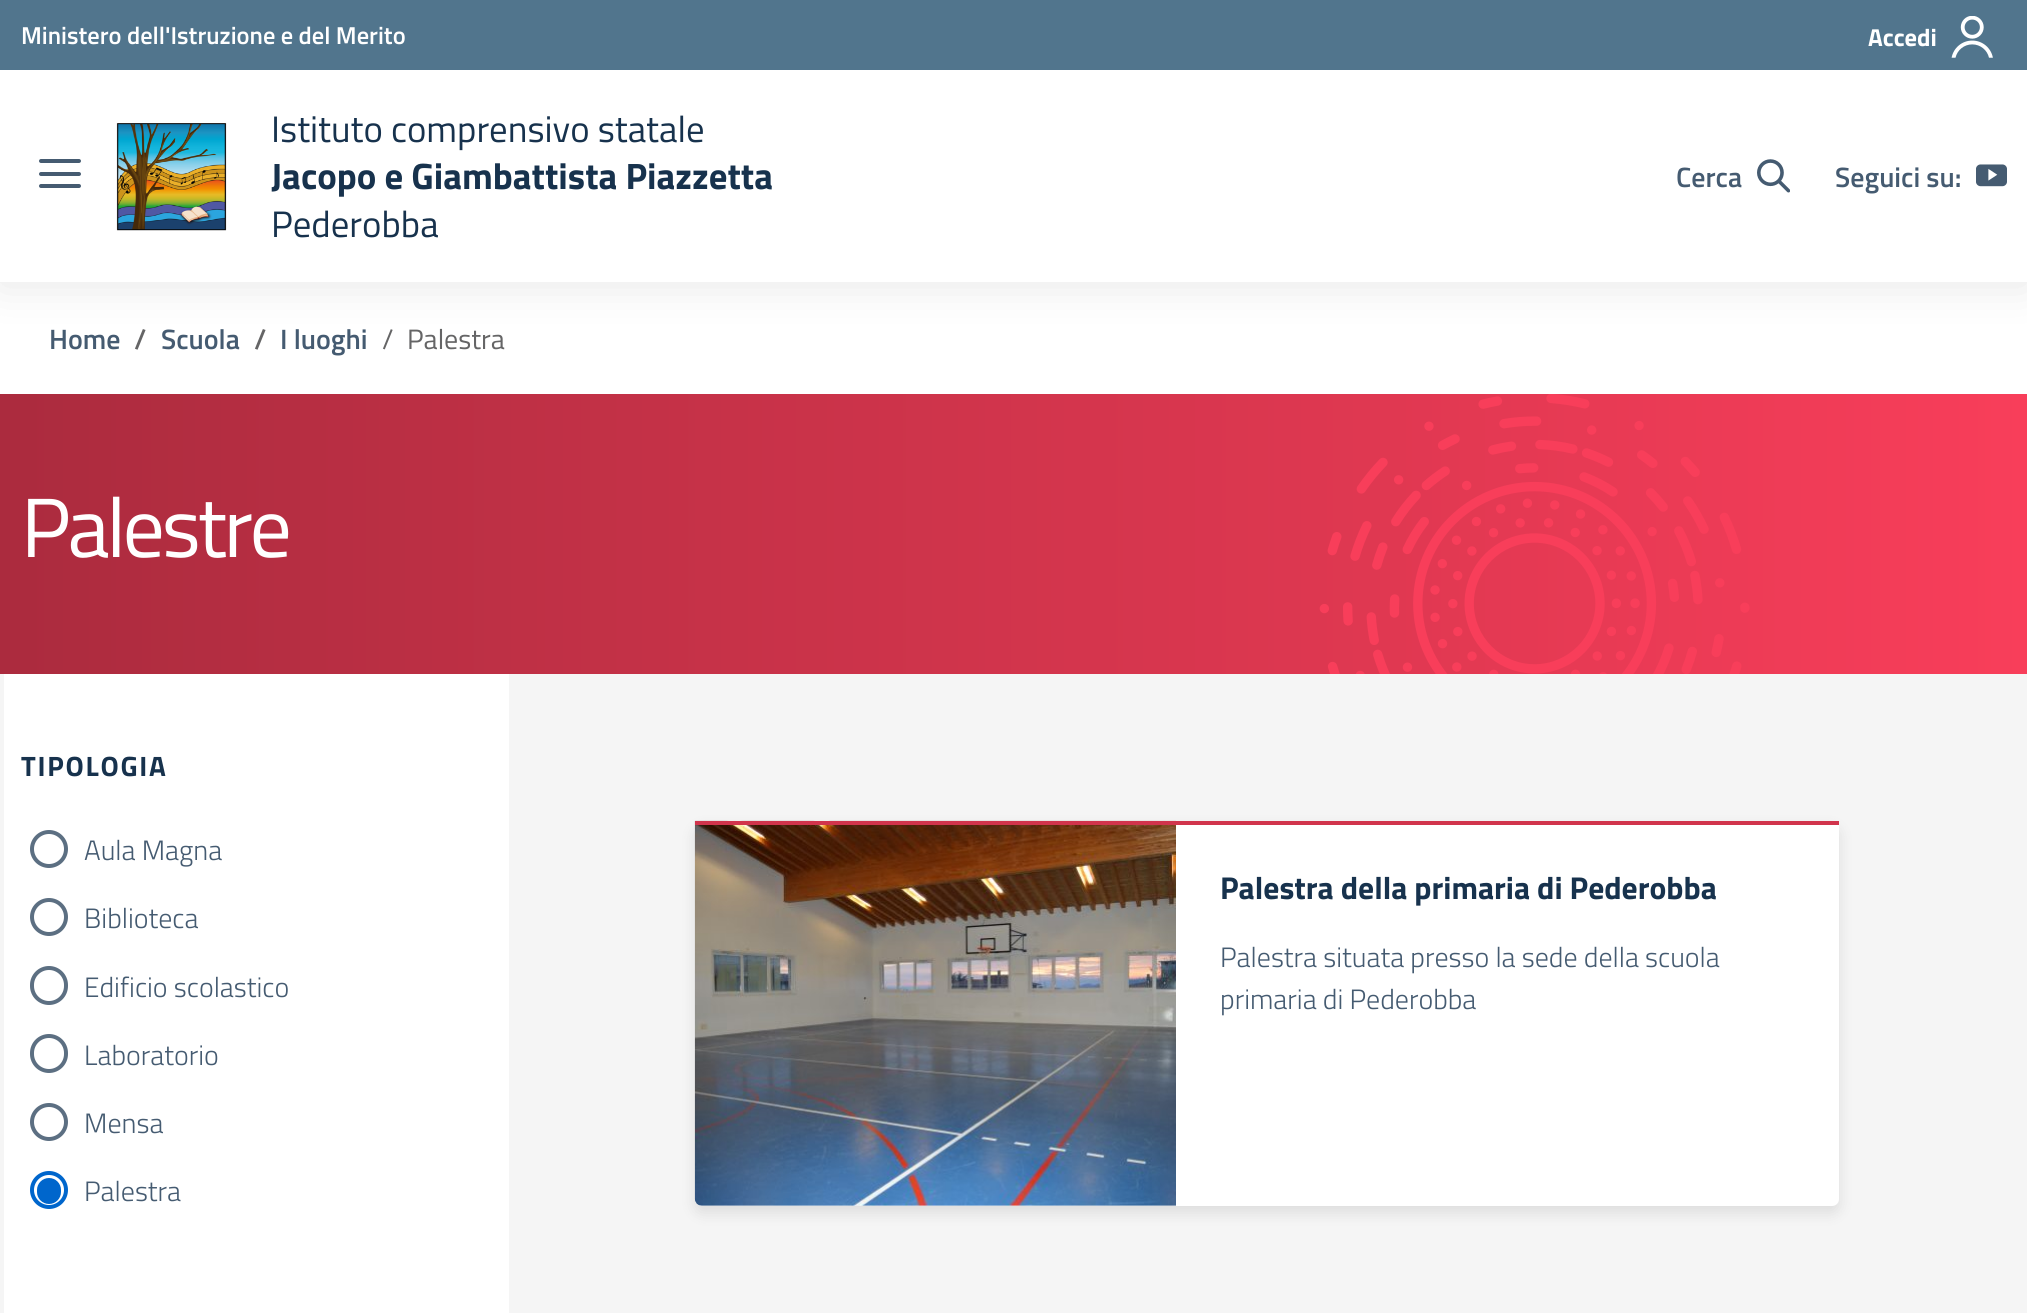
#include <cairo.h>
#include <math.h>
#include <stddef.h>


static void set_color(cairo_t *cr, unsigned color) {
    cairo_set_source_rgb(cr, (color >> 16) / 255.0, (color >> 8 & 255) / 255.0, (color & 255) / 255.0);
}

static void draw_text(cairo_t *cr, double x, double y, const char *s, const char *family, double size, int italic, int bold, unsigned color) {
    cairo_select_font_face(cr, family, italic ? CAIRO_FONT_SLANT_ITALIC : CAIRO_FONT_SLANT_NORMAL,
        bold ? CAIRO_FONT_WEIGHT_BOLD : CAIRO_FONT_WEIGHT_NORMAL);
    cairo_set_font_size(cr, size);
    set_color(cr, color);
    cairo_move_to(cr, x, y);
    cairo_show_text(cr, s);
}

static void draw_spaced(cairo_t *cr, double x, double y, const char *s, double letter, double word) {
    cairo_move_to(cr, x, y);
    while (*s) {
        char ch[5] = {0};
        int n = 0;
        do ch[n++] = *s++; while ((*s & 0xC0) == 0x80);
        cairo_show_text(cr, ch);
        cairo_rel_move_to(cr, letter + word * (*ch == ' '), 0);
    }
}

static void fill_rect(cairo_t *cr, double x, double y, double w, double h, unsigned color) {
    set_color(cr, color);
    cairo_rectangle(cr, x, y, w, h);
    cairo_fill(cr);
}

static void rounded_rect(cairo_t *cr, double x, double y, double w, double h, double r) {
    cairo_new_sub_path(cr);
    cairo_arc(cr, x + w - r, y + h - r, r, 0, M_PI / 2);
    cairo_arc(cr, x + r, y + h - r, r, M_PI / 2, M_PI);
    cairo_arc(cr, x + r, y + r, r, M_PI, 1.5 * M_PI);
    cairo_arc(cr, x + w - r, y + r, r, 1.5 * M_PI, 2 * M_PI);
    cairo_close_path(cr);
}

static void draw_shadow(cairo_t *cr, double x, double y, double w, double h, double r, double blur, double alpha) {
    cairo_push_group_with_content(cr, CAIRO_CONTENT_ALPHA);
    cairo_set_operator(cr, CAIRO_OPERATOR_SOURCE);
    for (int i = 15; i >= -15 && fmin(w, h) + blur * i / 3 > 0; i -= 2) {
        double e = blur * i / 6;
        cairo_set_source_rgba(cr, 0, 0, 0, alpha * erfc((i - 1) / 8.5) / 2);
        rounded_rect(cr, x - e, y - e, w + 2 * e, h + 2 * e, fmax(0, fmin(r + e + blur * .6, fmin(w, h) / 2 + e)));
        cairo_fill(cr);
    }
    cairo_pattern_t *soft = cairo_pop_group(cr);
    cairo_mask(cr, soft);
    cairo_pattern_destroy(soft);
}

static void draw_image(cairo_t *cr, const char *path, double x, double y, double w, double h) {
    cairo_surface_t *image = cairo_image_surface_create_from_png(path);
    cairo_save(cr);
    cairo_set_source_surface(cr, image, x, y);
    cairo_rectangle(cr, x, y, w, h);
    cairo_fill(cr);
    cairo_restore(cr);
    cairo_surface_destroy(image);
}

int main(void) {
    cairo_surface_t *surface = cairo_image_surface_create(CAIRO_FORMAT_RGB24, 2027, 1313);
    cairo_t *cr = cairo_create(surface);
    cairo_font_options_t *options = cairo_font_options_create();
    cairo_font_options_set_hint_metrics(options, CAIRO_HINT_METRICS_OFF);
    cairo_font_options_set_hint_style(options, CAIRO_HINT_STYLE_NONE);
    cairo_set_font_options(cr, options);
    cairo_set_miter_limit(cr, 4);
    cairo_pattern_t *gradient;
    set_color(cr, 0xFFFFFF);
    cairo_paint(cr);
    set_color(cr, 0x000000);
    draw_shadow(cr, 0, 4, 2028, 281, 0, 21.5, 0.1);
    fill_rect(cr, 0, 70, 2027, 212, 0xFFFFFF);
    fill_rect(cr, 0, 0, 2027, 70, 0x51758D);
    draw_text(cr, 21, 44, "Ministero dell'Istruzione e del Merito", "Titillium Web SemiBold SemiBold", 24.5, 0, 0, 0xFFFFFF);
    draw_text(cr, 1868, 46, "Accedi", "Titillium Web", 24.5, 0, 1, 0xFFFFFF);
    draw_image(cr, "assets/img1.png", 1951, 16, 42, 42);
    set_color(cr, 0x455B71);
    rounded_rect(cr, 39, 172, 42, 4, 2);
    cairo_fill(cr);
    rounded_rect(cr, 39, 159, 42, 4, 2);
    cairo_fill(cr);
    rounded_rect(cr, 39, 184, 42, 4, 2);
    cairo_fill(cr);
    draw_image(cr, "assets/img2.png", 116, 123, 111, 108);
    draw_text(cr, 271, 142, "Istituto comprensivo statale", "Titillium Web", 36.75, 0, 0, 0x17324D);
    draw_text(cr, 271, 189, "Jacopo e Giambattista Piazzetta", "Titillium Web", 36.75, 0, 1, 0x17324D);
    draw_text(cr, 271, 237, "Pederobba", "Titillium Web", 36.75, 0, 0, 0x17324D);
    draw_text(cr, 1676, 187, "Cerca", "Titillium Web SemiBold SemiBold", 28, 0, 0, 0x455B71);
    draw_image(cr, "assets/img3.png", 1757, 159, 33, 34);
    draw_text(cr, 1835, 187, "Seguici su:", "Titillium Web SemiBold SemiBold", 28, 0, 0, 0x455B71);
    draw_image(cr, "assets/img4.png", 1976, 164, 31, 23);
    draw_text(cr, 49, 349, "Home", "Titillium Web SemiBold SemiBold", 28, 0, 0, 0x455B71);
    draw_text(cr, 134, 349, "/", "Titillium Web SemiBold SemiBold", 28, 0, 0, 0x656566);
    draw_text(cr, 161, 349, "Scuola", "Titillium Web SemiBold SemiBold", 28, 0, 0, 0x455B71);
    draw_text(cr, 254, 349, "/", "Titillium Web SemiBold SemiBold", 28, 0, 0, 0x656566);
    draw_text(cr, 280, 349, "I luoghi", "Titillium Web SemiBold SemiBold", 28, 0, 0, 0x455B71);
    draw_text(cr, 382, 349, "/", "Titillium Web", 28, 0, 0, 0x656566);
    draw_text(cr, 407, 349, "Palestra", "Titillium Web", 28, 0, 0, 0x656566);
    gradient = cairo_pattern_create_linear(0, 534, 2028, 534);
    cairo_pattern_add_color_stop_rgba(gradient, 0, 0.671, 0.169, 0.243, 1);
    cairo_pattern_add_color_stop_rgba(gradient, 1, 0.973, 0.243, 0.353, 1);
    cairo_set_source(cr, gradient);
    cairo_pattern_destroy(gradient);
    cairo_rectangle(cr, 0, 394, 2027, 280);
    cairo_fill(cr);
    cairo_set_font_size(cr, 84);
    set_color(cr, 0xFFFFFF);
    draw_spaced(cr, 21, 557, "Palestre", -3.25, 0);
    draw_image(cr, "assets/img5.png", 1319, 394, 431, 280);
    fill_rect(cr, 0, 674, 2027, 639, 0xF5F5F5);
    fill_rect(cr, 4, 674, 505, 639, 0xFFFFFF);
    cairo_select_font_face(cr, "Titillium Web", CAIRO_FONT_SLANT_NORMAL, CAIRO_FONT_WEIGHT_BOLD);
    cairo_set_font_size(cr, 28);
    set_color(cr, 0x17324D);
    draw_spaced(cr, 21, 776, "TIPOLOGIA", 1.75, 0);
    cairo_new_path(cr);
    cairo_arc(cr, 49, 849, 17, 0, 2 * M_PI);
    set_color(cr, 0x5C6F82);
    cairo_set_line_width(cr, 4);
    cairo_stroke(cr);
    draw_text(cr, 84, 860, "Aula Magna", "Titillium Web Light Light", 28, 0, 0, 0x455B71);
    cairo_new_path(cr);
    cairo_arc(cr, 49, 917, 17, 0, 2 * M_PI);
    set_color(cr, 0x5C6F82);
    cairo_stroke(cr);
    draw_text(cr, 84, 928, "Biblioteca", "Titillium Web Light Light", 28, 0, 0, 0x455B71);
    rounded_rect(cr, 32, 968, 34, 35, 17);
    set_color(cr, 0x5C6F82);
    cairo_stroke(cr);
    draw_text(cr, 84, 997, "Edificio scolastico", "Titillium Web Light Light", 28, 0, 0, 0x455B71);
    rounded_rect(cr, 32, 1036, 34, 35, 17);
    set_color(cr, 0x5C6F82);
    cairo_stroke(cr);
    draw_text(cr, 84, 1065, "Laboratorio", "Titillium Web Light Light", 28, 0, 0, 0x455B71);
    cairo_new_path(cr);
    cairo_arc(cr, 49, 1122, 17, 0, 2 * M_PI);
    set_color(cr, 0x5C6F82);
    cairo_stroke(cr);
    draw_text(cr, 84, 1133, "Mensa", "Titillium Web Light Light", 28, 0, 0, 0x455B71);
    cairo_new_path(cr);
    cairo_arc(cr, 49, 1190, 17, 0, 2 * M_PI);
    set_color(cr, 0x0066CC);
    cairo_stroke(cr);
    rounded_rect(cr, 38, 1179, 22, 24, 11);
    cairo_fill_preserve(cr);
    cairo_set_line_width(cr, 2);
    cairo_stroke(cr);
    draw_text(cr, 84, 1201, "Palestra", "Titillium Web Light Light", 28, 0, 0, 0x455B71);
    set_color(cr, 0x000000);
    draw_shadow(cr, 695, 828, 1144, 385, 7, 7, 0.1);
    set_color(cr, 0xFFFFFF);
    cairo_new_path(cr);
    cairo_move_to(cr, 695, 821);
    cairo_line_to(cr, 1839, 821);
    cairo_line_to(cr, 1839, 1199);
    cairo_curve_to(cr, 1839, 1203, 1836, 1206, 1832, 1206);
    cairo_line_to(cr, 702, 1206);
    cairo_curve_to(cr, 698, 1206, 695, 1203, 695, 1199);
    cairo_close_path(cr);
    cairo_fill(cr);
    set_color(cr, 0xE7EAED);
    cairo_new_path(cr);
    cairo_move_to(cr, 695, 821);
    cairo_line_to(cr, 1176, 821);
    cairo_line_to(cr, 1176, 1206);
    cairo_line_to(cr, 702, 1206);
    cairo_curve_to(cr, 698, 1206, 695, 1203, 695, 1199);
    cairo_close_path(cr);
    cairo_fill(cr);
    draw_image(cr, "assets/img6.png", 694, 820, 482, 386);
    fill_rect(cr, 695, 821, 1144, 4, 0xD1344C);
    draw_text(cr, 1220, 899, "Palestra della primaria di Pederobba", "Titillium Web", 31.6, 0, 1, 0x17324D);
    draw_text(cr, 1220, 967, "Palestra situata presso la sede della scuola", "Titillium Web Light Light", 28, 0, 0, 0x455B71);
    draw_text(cr, 1220, 1009, "primaria di Pederobba", "Titillium Web Light Light", 28, 0, 0, 0x455B71);
    cairo_surface_write_to_png(surface, "output.png");
    cairo_font_options_destroy(options);
    cairo_destroy(cr);
    cairo_surface_destroy(surface);
    return 0;
}
